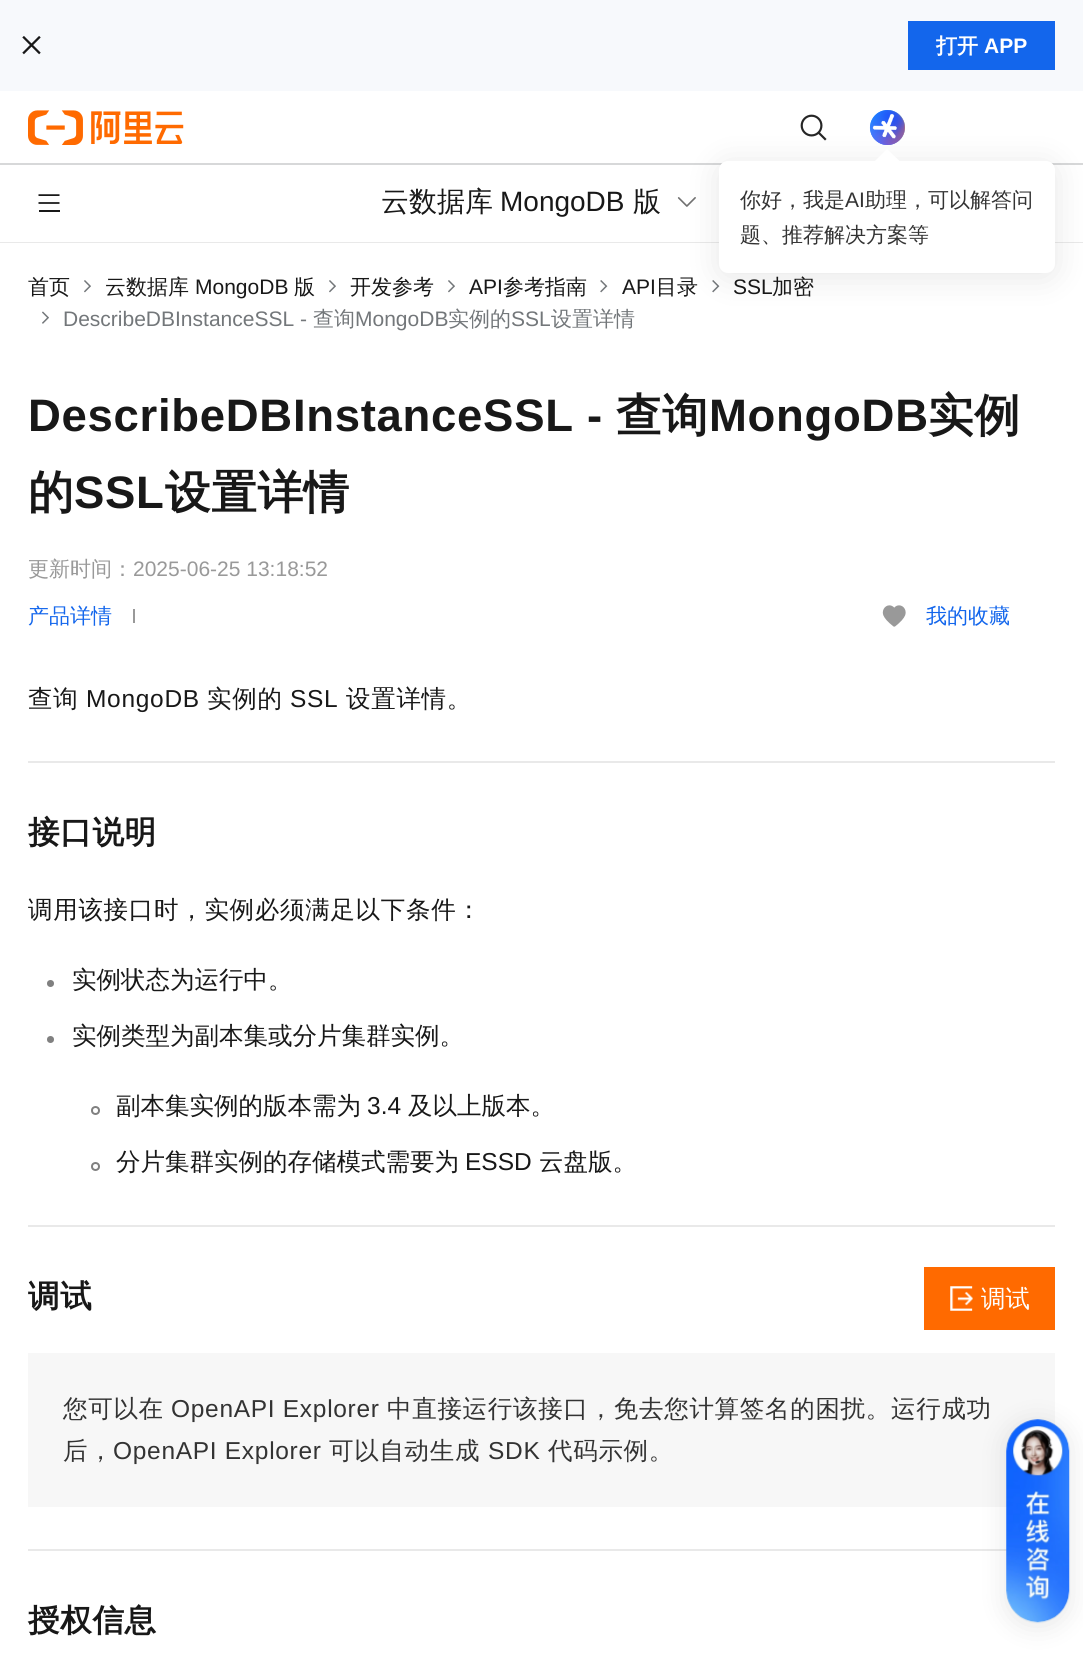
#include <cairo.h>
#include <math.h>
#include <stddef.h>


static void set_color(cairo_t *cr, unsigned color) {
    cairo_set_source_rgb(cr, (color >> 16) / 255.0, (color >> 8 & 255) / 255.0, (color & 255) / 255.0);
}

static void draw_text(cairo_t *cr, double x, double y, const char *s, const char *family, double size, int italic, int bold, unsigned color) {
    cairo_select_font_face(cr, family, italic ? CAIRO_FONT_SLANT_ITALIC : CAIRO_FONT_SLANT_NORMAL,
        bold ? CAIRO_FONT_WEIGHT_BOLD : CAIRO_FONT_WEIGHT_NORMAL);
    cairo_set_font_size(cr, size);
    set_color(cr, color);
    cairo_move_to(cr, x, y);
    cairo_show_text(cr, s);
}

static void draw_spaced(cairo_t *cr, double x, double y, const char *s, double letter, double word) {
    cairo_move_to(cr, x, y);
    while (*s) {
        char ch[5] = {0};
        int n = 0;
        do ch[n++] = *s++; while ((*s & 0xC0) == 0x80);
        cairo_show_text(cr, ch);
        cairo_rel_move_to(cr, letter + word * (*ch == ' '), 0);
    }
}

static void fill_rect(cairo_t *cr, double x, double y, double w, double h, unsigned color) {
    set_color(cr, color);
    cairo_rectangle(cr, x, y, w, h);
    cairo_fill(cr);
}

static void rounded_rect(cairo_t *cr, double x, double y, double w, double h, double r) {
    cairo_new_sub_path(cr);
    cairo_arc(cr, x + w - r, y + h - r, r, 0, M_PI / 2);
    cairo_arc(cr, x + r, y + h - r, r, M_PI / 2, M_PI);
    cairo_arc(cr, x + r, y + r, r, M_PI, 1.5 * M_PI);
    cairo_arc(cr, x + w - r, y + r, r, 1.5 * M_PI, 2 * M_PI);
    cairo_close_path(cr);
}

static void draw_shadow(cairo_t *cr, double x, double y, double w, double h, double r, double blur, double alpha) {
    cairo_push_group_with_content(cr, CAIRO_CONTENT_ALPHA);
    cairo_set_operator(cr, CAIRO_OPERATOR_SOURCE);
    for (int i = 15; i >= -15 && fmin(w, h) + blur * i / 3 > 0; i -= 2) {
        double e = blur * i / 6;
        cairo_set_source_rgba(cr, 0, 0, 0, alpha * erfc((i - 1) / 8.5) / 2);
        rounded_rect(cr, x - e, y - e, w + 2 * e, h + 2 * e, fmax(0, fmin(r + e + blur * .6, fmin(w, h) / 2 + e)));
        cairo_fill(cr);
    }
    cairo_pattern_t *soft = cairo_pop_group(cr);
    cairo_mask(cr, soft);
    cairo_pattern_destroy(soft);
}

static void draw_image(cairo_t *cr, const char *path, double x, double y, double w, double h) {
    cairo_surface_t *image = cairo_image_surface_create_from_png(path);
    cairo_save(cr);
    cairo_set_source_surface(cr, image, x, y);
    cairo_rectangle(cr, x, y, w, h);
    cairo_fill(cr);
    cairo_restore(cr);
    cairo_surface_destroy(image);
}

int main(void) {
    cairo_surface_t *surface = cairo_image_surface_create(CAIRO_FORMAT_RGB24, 1083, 1656);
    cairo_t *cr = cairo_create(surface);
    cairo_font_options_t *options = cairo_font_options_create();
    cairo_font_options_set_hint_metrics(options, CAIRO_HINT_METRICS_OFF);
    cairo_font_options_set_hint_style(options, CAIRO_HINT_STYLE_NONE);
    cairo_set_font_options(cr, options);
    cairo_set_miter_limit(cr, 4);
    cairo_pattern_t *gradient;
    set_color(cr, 0xFFFFFF);
    cairo_paint(cr);
    fill_rect(cr, 0, 0, 1083, 91, 0xF7F9FC);
    draw_image(cr, "assets/img1.png", 22, 36, 19, 19);
    fill_rect(cr, 908, 21, 147, 49, 0x1366EC);
    draw_text(cr, 936, 53, "打开", "WenQuanYi Zen Hei", 21, 0, 1, 0xFFFFFF);
    draw_text(cr, 984, 53, "APP", "Liberation Sans", 21, 0, 1, 0xFFFFFF);
    fill_rect(cr, 0, 163, 1083, 2, 0xD7D8D9);
    draw_image(cr, "assets/img2.png", 28, 110, 156, 35);
    draw_image(cr, "assets/img3.png", 800, 114, 27, 27);
    set_color(cr, 0x25A5FF);
    cairo_arc(cr, 887.5, 127.5, 17.5, 0, 2 * M_PI);
    cairo_fill(cr);
    gradient = cairo_pattern_create_radial(887, 137, 0, 887, 137, 32);
    cairo_pattern_add_color_stop_rgba(gradient, 0.05, 0.482, 0.278, 1, 1);
    cairo_pattern_add_color_stop_rgba(gradient, 0.8, 0.482, 0.278, 1, 0);
    cairo_set_source(cr, gradient);
    cairo_pattern_destroy(gradient);
    cairo_arc(cr, 887.5, 127.5, 17.5, 0, 2 * M_PI);
    cairo_fill(cr);
    gradient = cairo_pattern_create_radial(896, 128, 0, 896, 128, 32);
    cairo_pattern_add_color_stop_rgba(gradient, 0.05, 1, 0.392, 0.196, 1);
    cairo_pattern_add_color_stop_rgba(gradient, 0.7, 1, 0.392, 0.196, 0);
    cairo_set_source(cr, gradient);
    cairo_pattern_destroy(gradient);
    cairo_arc(cr, 887.5, 127.5, 17.5, 0, 2 * M_PI);
    cairo_fill(cr);
    gradient = cairo_pattern_create_radial(887, 119, 0, 887, 119, 32);
    cairo_pattern_add_color_stop_rgba(gradient, 0.05, 0.082, 0.282, 1, 1);
    cairo_pattern_add_color_stop_rgba(gradient, 0.6, 0.082, 0.282, 1, 0);
    cairo_set_source(cr, gradient);
    cairo_pattern_destroy(gradient);
    cairo_arc(cr, 887.5, 127.5, 17.5, 0, 2 * M_PI);
    cairo_fill(cr);
    draw_image(cr, "assets/img4.png", 869, 110, 36, 35);
    draw_image(cr, "assets/img5.png", 872, 113, 25, 26);
    fill_rect(cr, 0, 242, 1083, 1, 0xE9E9E9);
    draw_image(cr, "assets/img7.png", 677, 197, 19, 10);
    draw_image(cr, "assets/img9.png", 712, 280, 8, 13);
    set_color(cr, 0x000000);
    draw_shadow(cr, 719, 165, 336, 112, 9, 16, 0.1);
    set_color(cr, 0xFFFFFF);
    rounded_rect(cr, 719, 161, 336, 112, 9);
    cairo_fill(cr);
    cairo_new_path(cr);
    cairo_move_to(cr, 887, 149);
    cairo_line_to(cr, 899.5, 161);
    cairo_line_to(cr, 887, 173.5);
    cairo_line_to(cr, 875, 161);
    cairo_close_path(cr);
    cairo_fill(cr);
    draw_text(cr, 740, 207, "你好，我是", "WenQuanYi Zen Hei Medium", 21, 0, 0, 0x333333);
    draw_text(cr, 845, 207, "AI", "Liberation Sans", 21, 0, 0, 0x333333);
    draw_text(cr, 865, 207, "助理，可以解答问", "WenQuanYi Zen Hei Medium", 21, 0, 0, 0x333333);
    draw_text(cr, 740, 242, "题、推荐解决方案等", "WenQuanYi Zen Hei Medium", 21, 0, 0, 0x333333);
    draw_image(cr, "assets/img6.png", 38, 194, 22, 18);
    draw_text(cr, 381, 211, "云数据库", "WenQuanYi Zen Hei Medium", 28, 0, 0, 0x181818);
    draw_text(cr, 500, 211, "MongoDB", "Liberation Sans", 28, 0, 0, 0x181818);
    draw_text(cr, 633, 211, "版", "WenQuanYi Zen Hei Medium", 28, 0, 0, 0x181818);
    draw_text(cr, 28, 294, "首页", "WenQuanYi Zen Hei Medium", 21, 0, 0, 0x181818);
    draw_image(cr, "assets/img8.png", 84, 280, 7, 13);
    draw_text(cr, 105, 294, "云数据库", "WenQuanYi Zen Hei Medium", 21, 0, 0, 0x181818);
    draw_text(cr, 195, 294, "MongoDB", "Liberation Sans", 21, 0, 0, 0x181818);
    draw_text(cr, 294, 294, "版", "WenQuanYi Zen Hei Medium", 21, 0, 0, 0x181818);
    draw_image(cr, "assets/img8.png", 329, 280, 7, 13);
    draw_text(cr, 350, 294, "开发参考", "WenQuanYi Zen Hei Medium", 21, 0, 0, 0x181818);
    draw_image(cr, "assets/img8.png", 448, 280, 7, 13);
    draw_text(cr, 469, 294, "API", "Liberation Sans", 21, 0, 0, 0x181818);
    draw_text(cr, 503, 294, "参考指南", "WenQuanYi Zen Hei Medium", 21, 0, 0, 0x181818);
    draw_image(cr, "assets/img9.png", 600, 280, 8, 13);
    draw_text(cr, 622, 294, "API", "Liberation Sans", 21, 0, 0, 0x181818);
    draw_text(cr, 656, 294, "目录", "WenQuanYi Zen Hei Medium", 21, 0, 0, 0x181818);
    draw_text(cr, 733, 294, "SSL", "Liberation Sans", 21, 0, 0, 0x181818);
    draw_text(cr, 772, 294, "加密", "WenQuanYi Zen Hei Medium", 21, 0, 0, 0x181818);
    draw_image(cr, "assets/img10.png", 42, 311, 7, 13);
    draw_text(cr, 63, 326, "DescribeDBInstanceSSL -", "Liberation Sans", 21, 0, 0, 0x73777A);
    draw_text(cr, 313, 326, "查询", "WenQuanYi Zen Hei Medium", 21, 0, 0, 0x73777A);
    draw_text(cr, 355, 326, "MongoDB", "Liberation Sans", 21, 0, 0, 0x73777A);
    draw_text(cr, 448, 326, "实例的", "WenQuanYi Zen Hei Medium", 21, 0, 0, 0x73777A);
    draw_text(cr, 511, 326, "SSL", "Liberation Sans", 21, 0, 0, 0x73777A);
    draw_text(cr, 551, 326, "设置详情", "WenQuanYi Zen Hei Medium", 21, 0, 0, 0x73777A);
    cairo_select_font_face(cr, "Liberation Sans", CAIRO_FONT_SLANT_NORMAL, CAIRO_FONT_WEIGHT_BOLD);
    cairo_set_font_size(cr, 45.5);
    set_color(cr, 0x181818);
    draw_spaced(cr, 28, 431, "DescribeDBInstanceSSL -", 0.7, 0);
    cairo_select_font_face(cr, "WenQuanYi Zen Hei", CAIRO_FONT_SLANT_NORMAL, CAIRO_FONT_WEIGHT_BOLD);
    draw_spaced(cr, 616, 431, "查询", 0.7, 0);
    cairo_select_font_face(cr, "Liberation Sans", CAIRO_FONT_SLANT_NORMAL, CAIRO_FONT_WEIGHT_BOLD);
    draw_spaced(cr, 709, 431, "MongoDB", 0.7, 0);
    cairo_select_font_face(cr, "WenQuanYi Zen Hei", CAIRO_FONT_SLANT_NORMAL, CAIRO_FONT_WEIGHT_BOLD);
    draw_spaced(cr, 928, 431, "实例", 0.7, 0);
    draw_spaced(cr, 28, 508, "的", 0.7, 0);
    cairo_select_font_face(cr, "Liberation Sans", CAIRO_FONT_SLANT_NORMAL, CAIRO_FONT_WEIGHT_BOLD);
    draw_spaced(cr, 74, 508, "SSL", 0.7, 0);
    cairo_select_font_face(cr, "WenQuanYi Zen Hei", CAIRO_FONT_SLANT_NORMAL, CAIRO_FONT_WEIGHT_BOLD);
    draw_spaced(cr, 165, 508, "设置详情", 0.7, 0);
    draw_text(cr, 28, 576, "更新时间：", "WenQuanYi Zen Hei Medium", 21, 0, 0, 0x999999);
    draw_text(cr, 133, 576, "2025-06-25 13:18:52", "Liberation Sans", 21, 0, 0, 0x999999);
    draw_text(cr, 28, 623, "产品详情", "WenQuanYi Zen Hei Medium", 21, 0, 0, 0x1366EC);
    fill_rect(cr, 133, 609, 2, 14, 0x999999);
    draw_image(cr, "assets/img11.png", 882, 605, 24, 22);
    draw_text(cr, 926, 623, "我的收藏", "WenQuanYi Zen Hei Medium", 21, 0, 0, 0x1366EC);
    cairo_set_font_size(cr, 24.5);
    set_color(cr, 0x181818);
    draw_spaced(cr, 28, 707, "查询", 0.7, 0);
    cairo_select_font_face(cr, "Liberation Sans", CAIRO_FONT_SLANT_NORMAL, CAIRO_FONT_WEIGHT_NORMAL);
    draw_spaced(cr, 86, 707, "MongoDB", 0.7, 0);
    cairo_select_font_face(cr, "WenQuanYi Zen Hei Medium", CAIRO_FONT_SLANT_NORMAL, CAIRO_FONT_WEIGHT_NORMAL);
    draw_spaced(cr, 207, 707, "实例的", 0.7, 0);
    cairo_select_font_face(cr, "Liberation Sans", CAIRO_FONT_SLANT_NORMAL, CAIRO_FONT_WEIGHT_NORMAL);
    draw_spaced(cr, 290, 707, "SSL", 0.7, 0);
    cairo_select_font_face(cr, "WenQuanYi Zen Hei Medium", CAIRO_FONT_SLANT_NORMAL, CAIRO_FONT_WEIGHT_NORMAL);
    draw_spaced(cr, 346, 707, "设置详情。", 0.7, 0);
    fill_rect(cr, 28, 761, 1027, 2, 0xE9E9E9);
    cairo_select_font_face(cr, "WenQuanYi Zen Hei", CAIRO_FONT_SLANT_NORMAL, CAIRO_FONT_WEIGHT_BOLD);
    cairo_set_font_size(cr, 31.5);
    set_color(cr, 0x181818);
    draw_spaced(cr, 28, 843, "接口说明", 0.7, 0);
    cairo_select_font_face(cr, "WenQuanYi Zen Hei Medium", CAIRO_FONT_SLANT_NORMAL, CAIRO_FONT_WEIGHT_NORMAL);
    cairo_set_font_size(cr, 24.5);
    draw_spaced(cr, 28, 918, "调用该接口时，实例必须满足以下条件：", 0.7, 0);
    set_color(cr, 0x808080);
    cairo_new_path(cr);
    cairo_arc(cr, 50.5, 983.5, 3.5, 0, 2 * M_PI);
    cairo_fill(cr);
    draw_text(cr, 72, 988, "实例状态为运行中。", "WenQuanYi Zen Hei Medium", 24.5, 0, 0, 0x181818);
    set_color(cr, 0x808080);
    cairo_new_path(cr);
    cairo_arc(cr, 50.5, 1039.5, 3.5, 0, 2 * M_PI);
    cairo_fill(cr);
    draw_text(cr, 72, 1044, "实例类型为副本集或分片集群实例。", "WenQuanYi Zen Hei Medium", 24.5, 0, 0, 0x181818);
    cairo_new_path(cr);
    cairo_arc(cr, 95.5, 1110.5, 3.5, 0, 2 * M_PI);
    set_color(cr, 0x808080);
    cairo_stroke(cr);
    draw_text(cr, 116, 1114, "副本集实例的版本需为", "WenQuanYi Zen Hei Medium", 24.5, 0, 0, 0x181818);
    draw_text(cr, 367, 1114, "3.4", "Liberation Sans", 24.5, 0, 0, 0x181818);
    draw_text(cr, 408, 1114, "及以上版本。", "WenQuanYi Zen Hei Medium", 24.5, 0, 0, 0x181818);
    cairo_new_path(cr);
    cairo_arc(cr, 95.5, 1166.5, 3.5, 0, 2 * M_PI);
    set_color(cr, 0x808080);
    cairo_stroke(cr);
    draw_text(cr, 116, 1170, "分片集群实例的存储模式需要为", "WenQuanYi Zen Hei Medium", 24.5, 0, 0, 0x181818);
    draw_text(cr, 465, 1170, "ESSD", "Liberation Sans", 24.5, 0, 0, 0x181818);
    draw_text(cr, 539, 1170, "云盘版。", "WenQuanYi Zen Hei Medium", 24.5, 0, 0, 0x181818);
    fill_rect(cr, 28, 1225, 1027, 2, 0xE9E9E9);
    cairo_select_font_face(cr, "WenQuanYi Zen Hei", CAIRO_FONT_SLANT_NORMAL, CAIRO_FONT_WEIGHT_BOLD);
    cairo_set_font_size(cr, 31.5);
    set_color(cr, 0x181818);
    draw_spaced(cr, 28, 1307, "调试", 0.7, 0);
    fill_rect(cr, 924, 1267, 131, 63, 0xFF6A00);
    draw_image(cr, "assets/img12.png", 950, 1286, 23, 25);
    draw_text(cr, 981, 1307, "调试", "WenQuanYi Zen Hei Medium", 24.5, 0, 0, 0xFFFFFF);
    fill_rect(cr, 28, 1353, 1027, 154, 0xF7F7F7);
    set_color(cr, 0x333333);
    draw_spaced(cr, 63, 1417, "您可以在", 0.7, 0);
    cairo_select_font_face(cr, "Liberation Sans", CAIRO_FONT_SLANT_NORMAL, CAIRO_FONT_WEIGHT_NORMAL);
    draw_spaced(cr, 171, 1417, "OpenAPI Explorer", 0.7, 0);
    cairo_select_font_face(cr, "WenQuanYi Zen Hei Medium", CAIRO_FONT_SLANT_NORMAL, CAIRO_FONT_WEIGHT_NORMAL);
    draw_spaced(cr, 387, 1417, "中直接运行该接口，免去您计算签名的困扰。运行成功", 0.7, 0);
    draw_spaced(cr, 63, 1459, "后，", 0.7, 0);
    cairo_select_font_face(cr, "Liberation Sans", CAIRO_FONT_SLANT_NORMAL, CAIRO_FONT_WEIGHT_NORMAL);
    draw_spaced(cr, 113, 1459, "OpenAPI Explorer", 0.7, 0);
    cairo_select_font_face(cr, "WenQuanYi Zen Hei Medium", CAIRO_FONT_SLANT_NORMAL, CAIRO_FONT_WEIGHT_NORMAL);
    draw_spaced(cr, 329, 1459, "可以自动生成", 0.7, 0);
    cairo_select_font_face(cr, "Liberation Sans", CAIRO_FONT_SLANT_NORMAL, CAIRO_FONT_WEIGHT_NORMAL);
    draw_spaced(cr, 488, 1459, "SDK", 0.7, 0);
    cairo_select_font_face(cr, "WenQuanYi Zen Hei Medium", CAIRO_FONT_SLANT_NORMAL, CAIRO_FONT_WEIGHT_NORMAL);
    draw_spaced(cr, 548, 1459, "代码示例。", 0.7, 0);
    fill_rect(cr, 28, 1549, 979, 2, 0xE9E9E9);
    cairo_select_font_face(cr, "WenQuanYi Zen Hei", CAIRO_FONT_SLANT_NORMAL, CAIRO_FONT_WEIGHT_BOLD);
    cairo_set_font_size(cr, 31.5);
    set_color(cr, 0x181818);
    draw_spaced(cr, 28, 1631, "授权信息", 0.7, 0);
    set_color(cr, 0x000000);
    draw_shadow(cr, 1006, 1423, 63, 203, 31.5, 13, 0.1);
    draw_image(cr, "assets/img13.png", 1006, 1419, 64, 204);
    cairo_surface_write_to_png(surface, "output.png");
    cairo_font_options_destroy(options);
    cairo_destroy(cr);
    cairo_surface_destroy(surface);
    return 0;
}
